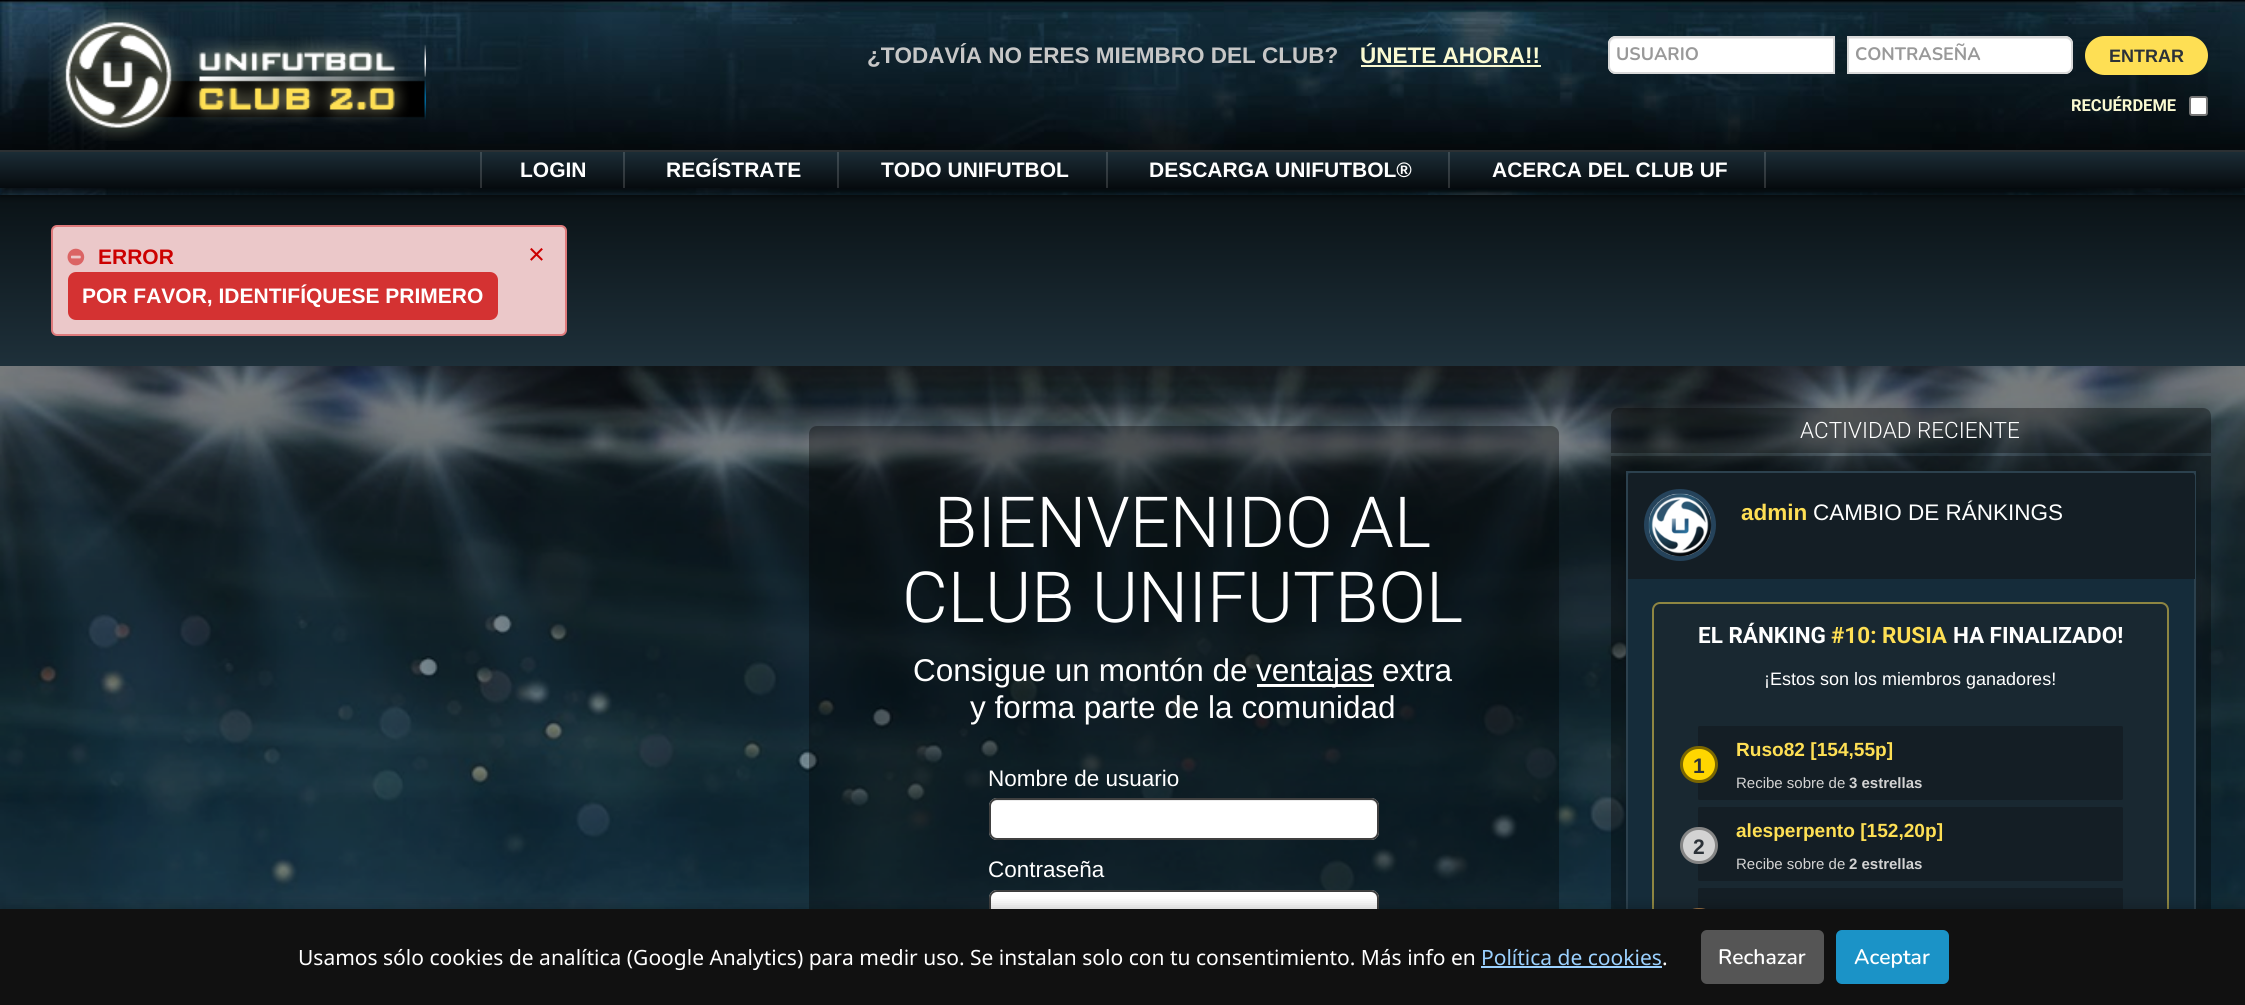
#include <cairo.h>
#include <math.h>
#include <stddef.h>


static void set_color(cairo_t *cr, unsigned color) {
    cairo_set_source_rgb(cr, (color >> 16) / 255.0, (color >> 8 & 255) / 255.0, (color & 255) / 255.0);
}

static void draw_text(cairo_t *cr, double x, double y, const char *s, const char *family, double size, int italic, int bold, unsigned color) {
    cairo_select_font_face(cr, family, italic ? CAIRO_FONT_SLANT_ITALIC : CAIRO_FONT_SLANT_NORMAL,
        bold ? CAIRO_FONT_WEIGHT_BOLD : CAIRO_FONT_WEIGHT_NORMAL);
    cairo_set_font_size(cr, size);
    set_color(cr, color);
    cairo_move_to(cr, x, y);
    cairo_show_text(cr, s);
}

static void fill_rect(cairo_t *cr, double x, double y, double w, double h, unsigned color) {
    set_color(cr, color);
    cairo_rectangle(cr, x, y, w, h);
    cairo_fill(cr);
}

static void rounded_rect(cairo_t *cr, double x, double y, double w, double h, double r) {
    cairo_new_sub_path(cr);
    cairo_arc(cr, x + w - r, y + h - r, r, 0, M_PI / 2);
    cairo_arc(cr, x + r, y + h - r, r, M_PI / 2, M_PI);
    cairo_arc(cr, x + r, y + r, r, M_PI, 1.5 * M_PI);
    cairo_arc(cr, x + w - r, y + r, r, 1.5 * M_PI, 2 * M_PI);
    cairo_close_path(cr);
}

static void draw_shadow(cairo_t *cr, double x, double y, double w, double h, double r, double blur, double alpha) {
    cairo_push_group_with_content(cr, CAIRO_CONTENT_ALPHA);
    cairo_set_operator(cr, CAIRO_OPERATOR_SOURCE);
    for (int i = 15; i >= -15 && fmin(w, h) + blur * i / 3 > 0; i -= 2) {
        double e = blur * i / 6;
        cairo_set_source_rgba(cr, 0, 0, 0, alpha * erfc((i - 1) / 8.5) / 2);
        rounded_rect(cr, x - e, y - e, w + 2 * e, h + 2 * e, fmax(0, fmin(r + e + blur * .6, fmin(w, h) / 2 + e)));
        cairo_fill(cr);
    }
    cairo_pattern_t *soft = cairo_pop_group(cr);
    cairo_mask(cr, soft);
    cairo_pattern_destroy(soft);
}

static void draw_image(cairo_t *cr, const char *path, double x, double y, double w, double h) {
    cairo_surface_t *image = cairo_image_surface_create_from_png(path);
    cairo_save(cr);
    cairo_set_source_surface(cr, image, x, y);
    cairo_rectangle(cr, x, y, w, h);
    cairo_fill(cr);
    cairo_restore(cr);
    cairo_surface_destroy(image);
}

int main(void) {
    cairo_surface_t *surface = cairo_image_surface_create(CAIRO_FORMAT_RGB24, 2245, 1005);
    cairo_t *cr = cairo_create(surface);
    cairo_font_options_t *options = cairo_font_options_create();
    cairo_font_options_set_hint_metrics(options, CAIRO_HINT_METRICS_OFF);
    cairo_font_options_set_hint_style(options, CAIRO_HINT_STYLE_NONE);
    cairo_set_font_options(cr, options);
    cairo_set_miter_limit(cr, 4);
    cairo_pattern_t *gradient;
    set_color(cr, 0xFFFFFF);
    cairo_paint(cr);
    draw_image(cr, "assets/img1.png", 0, 0, 2245, 195);
    draw_image(cr, "assets/img2.png", 53, 9, 373, 132);
    draw_text(cr, 867, 63, "¿TODAVÍA NO ERES MIEMBRO DEL CLUB?", "Liberation Sans", 22.5, 0, 1, 0xC7C7C7);
    draw_text(cr, 1360, 63, "ÚNETE AHORA!!", "Liberation Sans", 22.5, 0, 1, 0xFAFAD2);
    fill_rect(cr, 1361, 65, 180, 2, 0xFAFAD2);
    set_color(cr, 0xFFFFFF);
    cairo_new_path(cr);
    cairo_move_to(cr, 1616, 36);
    cairo_line_to(cr, 1835, 36);
    cairo_line_to(cr, 1835, 74);
    cairo_line_to(cr, 1616, 74);
    cairo_curve_to(cr, 1611.5, 74, 1608, 70.5, 1608, 66);
    cairo_line_to(cr, 1608, 44);
    cairo_curve_to(cr, 1608, 39.5, 1611.5, 36, 1616, 36);
    cairo_close_path(cr);
    cairo_fill(cr);
    set_color(cr, 0xECECEC);
    cairo_new_path(cr);
    cairo_move_to(cr, 1616, 39);
    cairo_line_to(cr, 1833, 39);
    cairo_line_to(cr, 1833, 38);
    cairo_line_to(cr, 1615, 38);
    cairo_curve_to(cr, 1611, 39, 1610, 42, 1610, 45);
    cairo_curve_to(cr, 1610, 42, 1612, 39, 1616, 39);
    cairo_close_path(cr);
    cairo_fill(cr);
    cairo_new_path(cr);
    cairo_move_to(cr, 1616, 37);
    cairo_line_to(cr, 1834, 37);
    cairo_line_to(cr, 1834, 73);
    cairo_line_to(cr, 1616, 73);
    cairo_curve_to(cr, 1612, 73, 1609, 70, 1609, 66);
    cairo_line_to(cr, 1609, 44);
    cairo_curve_to(cr, 1609, 40, 1612, 37, 1616, 37);
    cairo_close_path(cr);
    set_color(cr, 0xD9D9D9);
    cairo_stroke(cr);
    draw_text(cr, 1616, 60, "USUARIO", "Nunito", 18, 0, 1, 0x999999);
    set_color(cr, 0xFFFFFF);
    cairo_new_path(cr);
    cairo_move_to(cr, 1847, 36);
    cairo_line_to(cr, 2065, 36);
    cairo_curve_to(cr, 2069.5, 36, 2073, 39.5, 2073, 44);
    cairo_line_to(cr, 2073, 66);
    cairo_curve_to(cr, 2073, 70.5, 2069.5, 74, 2065, 74);
    cairo_line_to(cr, 1847, 74);
    cairo_close_path(cr);
    cairo_fill(cr);
    set_color(cr, 0xECECEC);
    cairo_new_path(cr);
    cairo_move_to(cr, 1848, 39);
    cairo_line_to(cr, 2066, 39);
    cairo_curve_to(cr, 2069, 39, 2072, 42, 2072, 45);
    cairo_curve_to(cr, 2072, 42, 2071, 39, 2067, 38);
    cairo_line_to(cr, 1848, 38);
    cairo_close_path(cr);
    cairo_fill(cr);
    cairo_new_path(cr);
    cairo_move_to(cr, 1848, 37);
    cairo_line_to(cr, 2065, 37);
    cairo_curve_to(cr, 2069, 37, 2072, 40, 2072, 44);
    cairo_line_to(cr, 2072, 66);
    cairo_curve_to(cr, 2072, 70, 2069, 73, 2065, 73);
    cairo_line_to(cr, 1848, 73);
    cairo_close_path(cr);
    set_color(cr, 0xD9D9D9);
    cairo_stroke(cr);
    draw_text(cr, 1855, 60, "CONTRASEÑA", "Nunito", 18, 0, 1, 0x999999);
    set_color(cr, 0xFEDF54);
    rounded_rect(cr, 2086, 37, 121, 37, 18.5);
    cairo_fill_preserve(cr);
    cairo_stroke(cr);
    draw_text(cr, 2109, 62, "ENTRAR", "Liberation Sans", 18, 0, 1, 0x2C3238);
    draw_text(cr, 2071, 111, "RECUÉRDEME", "Roboto", 16.5, 0, 1, 0xFAFAD2);
    set_color(cr, 0xFFFFFF);
    rounded_rect(cr, 2190, 97, 17, 18, 2);
    cairo_fill_preserve(cr);
    set_color(cr, 0x767676);
    cairo_stroke(cr);
    gradient = cairo_pattern_create_linear(1123, 195, 1123, 366);
    cairo_pattern_add_color_stop_rgba(gradient, 0, 0.039, 0.071, 0.086, 1);
    cairo_pattern_add_color_stop_rgba(gradient, 1, 0.118, 0.188, 0.227, 1);
    cairo_set_source(cr, gradient);
    cairo_pattern_destroy(gradient);
    cairo_rectangle(cr, 0, 195, 2245, 171);
    cairo_fill(cr);
    set_color(cr, 0x000000);
    draw_shadow(cr, 0, 158, 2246, 37, 0, 4, 0.75);
    gradient = cairo_pattern_create_linear(1123, 151, 1123, 188);
    cairo_pattern_add_color_stop_rgba(gradient, 0, 0.11, 0.176, 0.216, 1);
    cairo_pattern_add_color_stop_rgba(gradient, 1, 0.024, 0.043, 0.055, 1);
    cairo_set_source(cr, gradient);
    cairo_pattern_destroy(gradient);
    cairo_rectangle(cr, 0, 152, 2245, 36);
    cairo_fill(cr);
    fill_rect(cr, 0, 150, 2245, 2, 0x2C3033);
    cairo_set_source_rgba(cr, 1, 1, 1, 0.15);
    cairo_rectangle(cr, 480, 152, 2, 36);
    cairo_fill(cr);
    draw_text(cr, 520, 177, "LOGIN", "Liberation Sans", 21, 0, 1, 0xFFFFFF);
    cairo_set_source_rgba(cr, 1, 1, 1, 0.15);
    cairo_rectangle(cr, 623, 152, 2, 36);
    cairo_fill(cr);
    draw_text(cr, 666, 177, "REGÍSTRATE", "Liberation Sans", 21, 0, 1, 0xFFFFFF);
    cairo_set_source_rgba(cr, 1, 1, 1, 0.15);
    cairo_rectangle(cr, 837, 152, 2, 36);
    cairo_fill(cr);
    draw_text(cr, 881, 177, "TODO UNIFUTBOL", "Liberation Sans", 21, 0, 1, 0xFFFFFF);
    cairo_set_source_rgba(cr, 1, 1, 1, 0.15);
    cairo_rectangle(cr, 1106, 152, 2, 36);
    cairo_fill(cr);
    draw_text(cr, 1149, 177, "DESCARGA UNIFUTBOL®", "Liberation Sans", 21, 0, 1, 0xFFFFFF);
    cairo_set_source_rgba(cr, 1, 1, 1, 0.15);
    cairo_rectangle(cr, 1448, 152, 2, 36);
    cairo_fill(cr);
    draw_text(cr, 1492, 177, "ACERCA DEL CLUB UF", "Liberation Sans", 21, 0, 1, 0xFFFFFF);
    cairo_set_source_rgba(cr, 1, 1, 1, 0.15);
    cairo_rectangle(cr, 1764, 152, 2, 36);
    cairo_fill(cr);
    set_color(cr, 0xEBC8C9);
    rounded_rect(cr, 52, 226, 514, 109, 5);
    cairo_fill_preserve(cr);
    set_color(cr, 0xDE7A7B);
    cairo_stroke(cr);
    draw_image(cr, "assets/img3.png", 67, 248, 18, 18);
    draw_text(cr, 98, 264, "ERROR", "Liberation Sans", 21, 0, 1, 0xCC0000);
    draw_text(cr, 528, 264, "×", "Liberation Sans", 29, 0, 0, 0xCC0000);
    set_color(cr, 0xD43232);
    rounded_rect(cr, 68, 272, 430, 48, 8);
    cairo_fill(cr);
    draw_text(cr, 82, 303, "POR FAVOR, IDENTIFÍQUESE PRIMERO", "Liberation Sans", 21, 0, 1, 0xFFFFFF);
    draw_image(cr, "assets/img4.png", 0, 366, 2245, 543);
    cairo_set_source_rgba(cr, 0, 0, 0, 0.35);
    rounded_rect(cr, 809, 426, 750, 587, 8);
    cairo_fill(cr);
    draw_text(cr, 934, 547, "BIENVENIDO AL", "Roboto Light", 70.5, 0, 0, 0xFFFFFF);
    draw_text(cr, 902, 622, "CLUB UNIFUTBOL", "Roboto Light", 70.5, 0, 0, 0xFFFFFF);
    draw_text(cr, 913, 681, "Consigue un montón de", "Liberation Sans", 31.5, 0, 0, 0xFFFFFF);
    fill_rect(cr, 1257, 684, 117, 3, 0xFFFFFF);
    draw_text(cr, 1256, 681, "ventajas extra", "Liberation Sans", 31.5, 0, 0, 0xFFFFFF);
    draw_text(cr, 970, 718, "y forma parte de la comunidad", "Liberation Sans", 31.5, 0, 0, 0xFFFFFF);
    draw_text(cr, 988, 786, "Nombre de usuario", "Liberation Sans", 22.5, 0, 0, 0xFFFFFF);
    rounded_rect(cr, 989, 798, 390, 42, 8);
    cairo_fill(cr);
    set_color(cr, 0xECECEC);
    cairo_new_path(cr);
    cairo_move_to(cr, 996, 801);
    cairo_line_to(cr, 1371, 801);
    cairo_curve_to(cr, 1374, 801, 1377, 804, 1377, 807);
    cairo_curve_to(cr, 1377, 803, 1375, 800, 1371, 800);
    cairo_line_to(cr, 996, 800);
    cairo_curve_to(cr, 992, 800, 990, 803, 990, 807);
    cairo_curve_to(cr, 990, 804, 993, 801, 996, 801);
    cairo_close_path(cr);
    cairo_fill(cr);
    rounded_rect(cr, 990, 799, 388, 40, 7);
    cairo_set_source_rgba(cr, 0, 0, 0, 0.75);
    cairo_stroke(cr);
    draw_text(cr, 988, 877, "Contraseña", "Liberation Sans", 22.5, 0, 0, 0xFFFFFF);
    rounded_rect(cr, 989, 890, 390, 42, 8);
    cairo_fill(cr);
    set_color(cr, 0xECECEC);
    cairo_new_path(cr);
    cairo_move_to(cr, 996, 892);
    cairo_line_to(cr, 1371, 892);
    cairo_curve_to(cr, 1374, 892, 1377, 895, 1377, 898);
    cairo_curve_to(cr, 1377, 894, 1375, 891, 1371, 891);
    cairo_line_to(cr, 996, 891);
    cairo_curve_to(cr, 992, 891, 990, 894, 990, 898);
    cairo_curve_to(cr, 990, 895, 993, 892, 996, 892);
    cairo_close_path(cr);
    cairo_fill(cr);
    rounded_rect(cr, 990, 891, 388, 40, 7);
    cairo_set_source_rgba(cr, 0, 0, 0, 0.75);
    cairo_stroke(cr);
    cairo_set_source_rgba(cr, 0, 0, 0, 0.35);
    cairo_rectangle(cr, 1611, 456, 600, 453);
    cairo_fill(cr);
    cairo_new_path(cr);
    cairo_move_to(cr, 1619, 408);
    cairo_line_to(cr, 2203, 408);
    cairo_curve_to(cr, 2207.5, 408, 2211, 411.5, 2211, 416);
    cairo_line_to(cr, 2211, 453);
    cairo_line_to(cr, 1611, 453);
    cairo_line_to(cr, 1611, 416);
    cairo_curve_to(cr, 1611, 411.5, 1614.5, 408, 1619, 408);
    cairo_close_path(cr);
    cairo_fill(cr);
    draw_text(cr, 1800, 438, "ACTIVIDAD RECIENTE", "Roboto Light", 22.5, 0, 0, 0xFFFFFF);
    set_color(cr, 0x000000);
    draw_shadow(cr, 1626, 473, 570, 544, 0, 4, 0.1);
    fill_rect(cr, 1628, 473, 566, 436, 0x152C3A);
    cairo_rectangle(cr, 1627, 472, 568, 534);
    set_color(cr, 0x2C414E);
    cairo_stroke(cr);
    set_color(cr, 0x141E25);
    cairo_new_path(cr);
    cairo_move_to(cr, 1631, 473);
    cairo_line_to(cr, 2192, 473);
    cairo_curve_to(cr, 2193.5, 473, 2195, 474.5, 2195, 476);
    cairo_line_to(cr, 2195, 579);
    cairo_line_to(cr, 1628, 579);
    cairo_line_to(cr, 1628, 476);
    cairo_curve_to(cr, 1628, 474.5, 1629.5, 473, 1631, 473);
    cairo_close_path(cr);
    cairo_fill(cr);
    cairo_arc(cr, 1680, 525, 33.5, 0, 2 * M_PI);
    set_color(cr, 0x25435B);
    cairo_set_line_width(cr, 5);
    cairo_stroke(cr);
    draw_image(cr, "assets/img5.png", 1648, 493, 64, 64);
    draw_text(cr, 1741, 520, "admin", "Liberation Sans", 22.5, 0, 1, 0xFEDF54);
    draw_text(cr, 1813, 520, "CAMBIO DE RÁNKINGS", "Liberation Sans", 22.5, 0, 0, 0xFFFFFF);
    set_color(cr, 0x192831);
    cairo_new_path(cr);
    cairo_move_to(cr, 1660, 602);
    cairo_line_to(cr, 2161, 602);
    cairo_curve_to(cr, 2165.5, 602, 2169, 605.5, 2169, 610);
    cairo_line_to(cr, 2169, 975);
    cairo_line_to(cr, 1652, 975);
    cairo_line_to(cr, 1652, 610);
    cairo_curve_to(cr, 1652, 605.5, 1655.5, 602, 1660, 602);
    cairo_close_path(cr);
    cairo_fill(cr);
    rounded_rect(cr, 1653, 603, 515, 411, 7);
    cairo_set_source_rgba(cr, 0.996, 0.875, 0.329, 0.51);
    cairo_set_line_width(cr, 2);
    cairo_stroke(cr);
    draw_text(cr, 1698, 643, "EL RÁNKING", "Roboto", 22.5, 0, 1, 0xFFFFFF);
    draw_text(cr, 1831, 643, "#10: RUSIA", "Roboto", 22.5, 0, 1, 0xFEDF54);
    draw_text(cr, 1953, 643, "HA FINALIZADO!", "Roboto", 22.5, 0, 1, 0xFFFFFF);
    draw_text(cr, 1764, 685, "¡Estos son los miembros ganadores!", "Liberation Sans", 18, 0, 0, 0xFFFFFF);
    set_color(cr, 0x141E25);
    rounded_rect(cr, 1698, 726, 425, 74, 1.5);
    cairo_fill(cr);
    set_color(cr, 0xFFD600);
    rounded_rect(cr, 1681.5, 747.5, 35, 34, 17);
    cairo_fill_preserve(cr);
    set_color(cr, 0x7A6601);
    cairo_set_line_width(cr, 3);
    cairo_stroke(cr);
    draw_text(cr, 1693, 773, "1", "Liberation Sans", 21, 0, 1, 0x2C3238);
    draw_text(cr, 1736, 756, "Ruso82 [154,55p]", "Liberation Sans", 19.1, 0, 1, 0xFEDF54);
    draw_text(cr, 1736, 788, "Recibe sobre de", "Liberation Sans", 15, 0, 0, 0xD3D3D3);
    draw_text(cr, 1849, 788, "3 estrellas", "Liberation Sans", 15, 0, 1, 0xD3D3D3);
    set_color(cr, 0x141E25);
    rounded_rect(cr, 1698, 807, 425, 74, 1.5);
    cairo_fill(cr);
    set_color(cr, 0xD3D3D3);
    rounded_rect(cr, 1681.5, 828.5, 35, 34, 17);
    cairo_fill_preserve(cr);
    set_color(cr, 0x858585);
    cairo_stroke(cr);
    draw_text(cr, 1693, 854, "2", "Liberation Sans", 21, 0, 1, 0x2C3238);
    draw_text(cr, 1736, 837, "alesperpento [152,20p]", "Liberation Sans", 19.1, 0, 1, 0xFEDF54);
    draw_text(cr, 1736, 869, "Recibe sobre de", "Liberation Sans", 15, 0, 0, 0xD3D3D3);
    draw_text(cr, 1849, 869, "2 estrellas", "Liberation Sans", 15, 0, 1, 0xD3D3D3);
    set_color(cr, 0x141E25);
    rounded_rect(cr, 1698, 888, 425, 75, 1.5);
    cairo_fill(cr);
    rounded_rect(cr, 1681.5, 909.5, 35, 34, 17);
    set_color(cr, 0x9C7244);
    cairo_stroke(cr);
    set_color(cr, 0x000000);
    draw_shadow(cr, 0, 906, 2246, 96, 0, 6, 0.2);
    fill_rect(cr, 0, 909, 2245, 96, 0x111111);
    draw_text(cr, 298, 965, "Usamos sólo cookies de analítica (Google Analytics) para medir uso. Se instalan solo con tu consentimiento. Más info en", "Noto Sans", 21, 0, 0, 0xFFFFFF);
    draw_text(cr, 1481, 965, "Política de cookies", "Noto Sans", 21, 0, 0, 0x9BD1FF);
    fill_rect(cr, 1481, 966, 181, 2, 0x9BD1FF);
    draw_text(cr, 1662, 965, ".", "Noto Sans", 21, 0, 0, 0xFFFFFF);
    set_color(cr, 0x555555);
    rounded_rect(cr, 1701, 930, 123, 54, 6);
    cairo_fill(cr);
    draw_text(cr, 1718, 964, "Rechazar", "Nunito SemiBold", 21, 0, 0, 0xFFFFFF);
    set_color(cr, 0x1B93C7);
    rounded_rect(cr, 1836, 930, 113, 54, 6);
    cairo_fill(cr);
    draw_text(cr, 1854, 964, "Aceptar", "Nunito SemiBold", 21, 0, 0, 0xFFFFFF);
    cairo_surface_write_to_png(surface, "output.png");
    cairo_font_options_destroy(options);
    cairo_destroy(cr);
    cairo_surface_destroy(surface);
    return 0;
}
